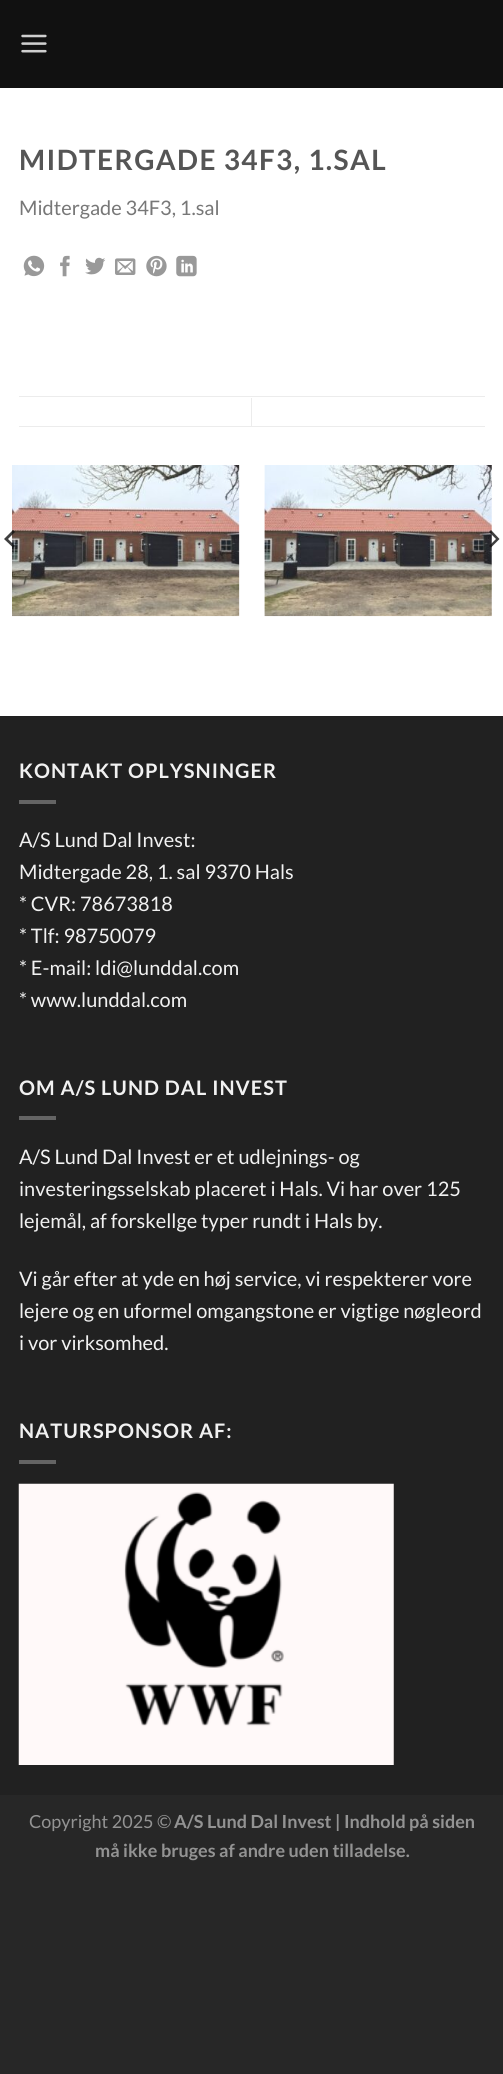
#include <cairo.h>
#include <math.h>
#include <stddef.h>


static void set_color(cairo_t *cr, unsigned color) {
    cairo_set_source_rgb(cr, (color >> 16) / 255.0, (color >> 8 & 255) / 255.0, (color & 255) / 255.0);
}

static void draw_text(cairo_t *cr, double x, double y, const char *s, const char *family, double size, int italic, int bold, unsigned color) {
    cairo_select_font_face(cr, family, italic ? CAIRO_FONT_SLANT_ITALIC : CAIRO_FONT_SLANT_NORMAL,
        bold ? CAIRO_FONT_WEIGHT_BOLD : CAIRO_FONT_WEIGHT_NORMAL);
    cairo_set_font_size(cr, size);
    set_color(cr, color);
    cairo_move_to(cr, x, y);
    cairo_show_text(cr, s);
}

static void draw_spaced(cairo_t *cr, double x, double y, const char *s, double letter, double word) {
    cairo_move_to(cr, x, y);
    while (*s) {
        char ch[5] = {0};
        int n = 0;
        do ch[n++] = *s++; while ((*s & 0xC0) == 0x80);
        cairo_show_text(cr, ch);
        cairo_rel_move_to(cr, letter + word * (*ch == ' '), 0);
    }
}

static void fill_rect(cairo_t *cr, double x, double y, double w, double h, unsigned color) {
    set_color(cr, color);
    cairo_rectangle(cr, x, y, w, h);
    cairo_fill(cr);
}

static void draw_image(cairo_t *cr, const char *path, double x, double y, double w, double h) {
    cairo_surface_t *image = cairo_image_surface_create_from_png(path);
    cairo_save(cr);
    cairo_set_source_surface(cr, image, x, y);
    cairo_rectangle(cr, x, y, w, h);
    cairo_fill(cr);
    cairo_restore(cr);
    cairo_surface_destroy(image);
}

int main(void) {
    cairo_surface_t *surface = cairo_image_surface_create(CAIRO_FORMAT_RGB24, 503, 2074);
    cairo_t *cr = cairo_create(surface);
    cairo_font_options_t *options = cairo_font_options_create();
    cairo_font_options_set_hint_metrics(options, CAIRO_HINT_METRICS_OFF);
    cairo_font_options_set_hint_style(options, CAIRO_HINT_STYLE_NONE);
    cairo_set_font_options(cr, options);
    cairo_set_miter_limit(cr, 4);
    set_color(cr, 0x272727);
    cairo_paint(cr);
    fill_rect(cr, 0, 88, 503, 628, 0xFFFFFF);
    fill_rect(cr, 0, 0, 503, 88, 0x111111);
    draw_image(cr, "assets/img1.png", 21, 34, 26, 19);
    cairo_select_font_face(cr, "Lato", CAIRO_FONT_SLANT_NORMAL, CAIRO_FONT_WEIGHT_BOLD);
    cairo_set_font_size(cr, 28);
    set_color(cr, 0x555555);
    draw_spaced(cr, 19, 170, "MIDTERGADE 34F3, 1.SAL", 1.4, 0);
    draw_text(cr, 19, 215, "Midtergade 34F3, 1.sal", "Lato", 20, 0, 0, 0x777777);
    draw_image(cr, "assets/img2.png", 23, 255, 22, 22);
    draw_image(cr, "assets/img3.png", 60, 255, 10, 22);
    draw_image(cr, "assets/img4.png", 85, 257, 21, 18);
    draw_image(cr, "assets/img5.png", 115, 258, 21, 17);
    draw_image(cr, "assets/img6.png", 146, 255, 21, 22);
    draw_image(cr, "assets/img7.png", 176, 255, 21, 22);
    fill_rect(cr, 19, 396, 466, 1, 0xECECEC);
    fill_rect(cr, 19, 426, 466, 1, 0xECECEC);
    fill_rect(cr, 251, 398, 1, 28, 0xECECEC);
    draw_image(cr, "assets/img8.png", 12, 465, 228, 152);
    cairo_set_source_rgba(cr, 0.067, 0.067, 0.067, 0.8);
    cairo_new_path(cr);
    cairo_move_to(cr, 4, 539);
    cairo_line_to(cr, 13, 547.5);
    cairo_line_to(cr, 15, 546);
    cairo_line_to(cr, 8, 539);
    cairo_line_to(cr, 15, 532);
    cairo_line_to(cr, 13, 530);
    cairo_close_path(cr);
    cairo_fill(cr);
    draw_image(cr, "assets/img9.png", 264, 465, 228, 152);
    cairo_new_path(cr);
    cairo_move_to(cr, 499.5, 539);
    cairo_line_to(cr, 491, 530);
    cairo_line_to(cr, 489, 532);
    cairo_line_to(cr, 496, 539);
    cairo_line_to(cr, 489, 546);
    cairo_line_to(cr, 491, 547.5);
    cairo_close_path(cr);
    cairo_fill(cr);
    fill_rect(cr, 0, 717, 503, 1078, 0x212121);
    fill_rect(cr, 0, 716, 503, 1, 0x1F1F1F);
    cairo_select_font_face(cr, "Lato", CAIRO_FONT_SLANT_NORMAL, CAIRO_FONT_WEIGHT_BOLD);
    set_color(cr, 0xF1F1F1);
    draw_spaced(cr, 19, 778, "KONTAKT OPLYSNINGER", 1, 0);
    fill_rect(cr, 19, 800, 37, 4, 0x646464);
    draw_text(cr, 19, 847, "A/S Lund Dal Invest:", "Lato", 20, 0, 0, 0xF1F1F1);
    draw_text(cr, 19, 879, "Midtergade 28, 1. sal 9370 Hals", "Lato", 20, 0, 0, 0xF1F1F1);
    draw_text(cr, 19, 911, "* CVR: 78673818", "Lato", 20, 0, 0, 0xF1F1F1);
    draw_text(cr, 19, 943, "* Tlf: 98750079", "Lato", 20, 0, 0, 0xF1F1F1);
    draw_text(cr, 19, 975, "* E-mail: ldi@lunddal.com", "Lato", 20, 0, 0, 0xF1F1F1);
    draw_text(cr, 19, 1007, "* www.lunddal.com", "Lato", 20, 0, 0, 0xF1F1F1);
    cairo_select_font_face(cr, "Lato", CAIRO_FONT_SLANT_NORMAL, CAIRO_FONT_WEIGHT_BOLD);
    draw_spaced(cr, 19, 1095, "OM A/S LUND DAL INVEST", 1, 0);
    fill_rect(cr, 19, 1116, 37, 4, 0x646464);
    draw_text(cr, 19, 1164, "A/S Lund Dal Invest er et udlejnings- og", "Lato", 20, 0, 0, 0xF1F1F1);
    draw_text(cr, 19, 1196, "investeringsselskab placeret i Hals. Vi har over 125", "Lato", 20, 0, 0, 0xF1F1F1);
    draw_text(cr, 19, 1228, "lejemål, af forskellge typer rundt i Hals by.", "Lato", 20, 0, 0, 0xF1F1F1);
    draw_text(cr, 19, 1286, "Vi går efter at yde en høj service, vi respekterer vore", "Lato", 20, 0, 0, 0xF1F1F1);
    draw_text(cr, 19, 1318, "lejere og en uformel omgangstone er vigtige nøgleord", "Lato", 20, 0, 0, 0xF1F1F1);
    draw_text(cr, 19, 1350, "i vor virksomhed.", "Lato", 20, 0, 0, 0xF1F1F1);
    cairo_select_font_face(cr, "Lato", CAIRO_FONT_SLANT_NORMAL, CAIRO_FONT_WEIGHT_BOLD);
    draw_spaced(cr, 19, 1438, "NATURSPONSOR AF:", 1, 0);
    fill_rect(cr, 19, 1460, 37, 4, 0x646464);
    draw_image(cr, "assets/img10.png", 18, 1483, 376, 282);
    draw_text(cr, 29, 1828, "Copyright 2025 ©", "Lato", 18, 0, 0, 0x939393);
    draw_text(cr, 174, 1828, "A/S Lund Dal Invest | Indhold på siden", "Lato", 18, 0, 1, 0x939393);
    draw_text(cr, 95, 1857, "må ikke bruges af andre uden tilladelse.", "Lato", 18, 0, 1, 0x939393);
    cairo_surface_write_to_png(surface, "output.png");
    cairo_font_options_destroy(options);
    cairo_destroy(cr);
    cairo_surface_destroy(surface);
    return 0;
}
